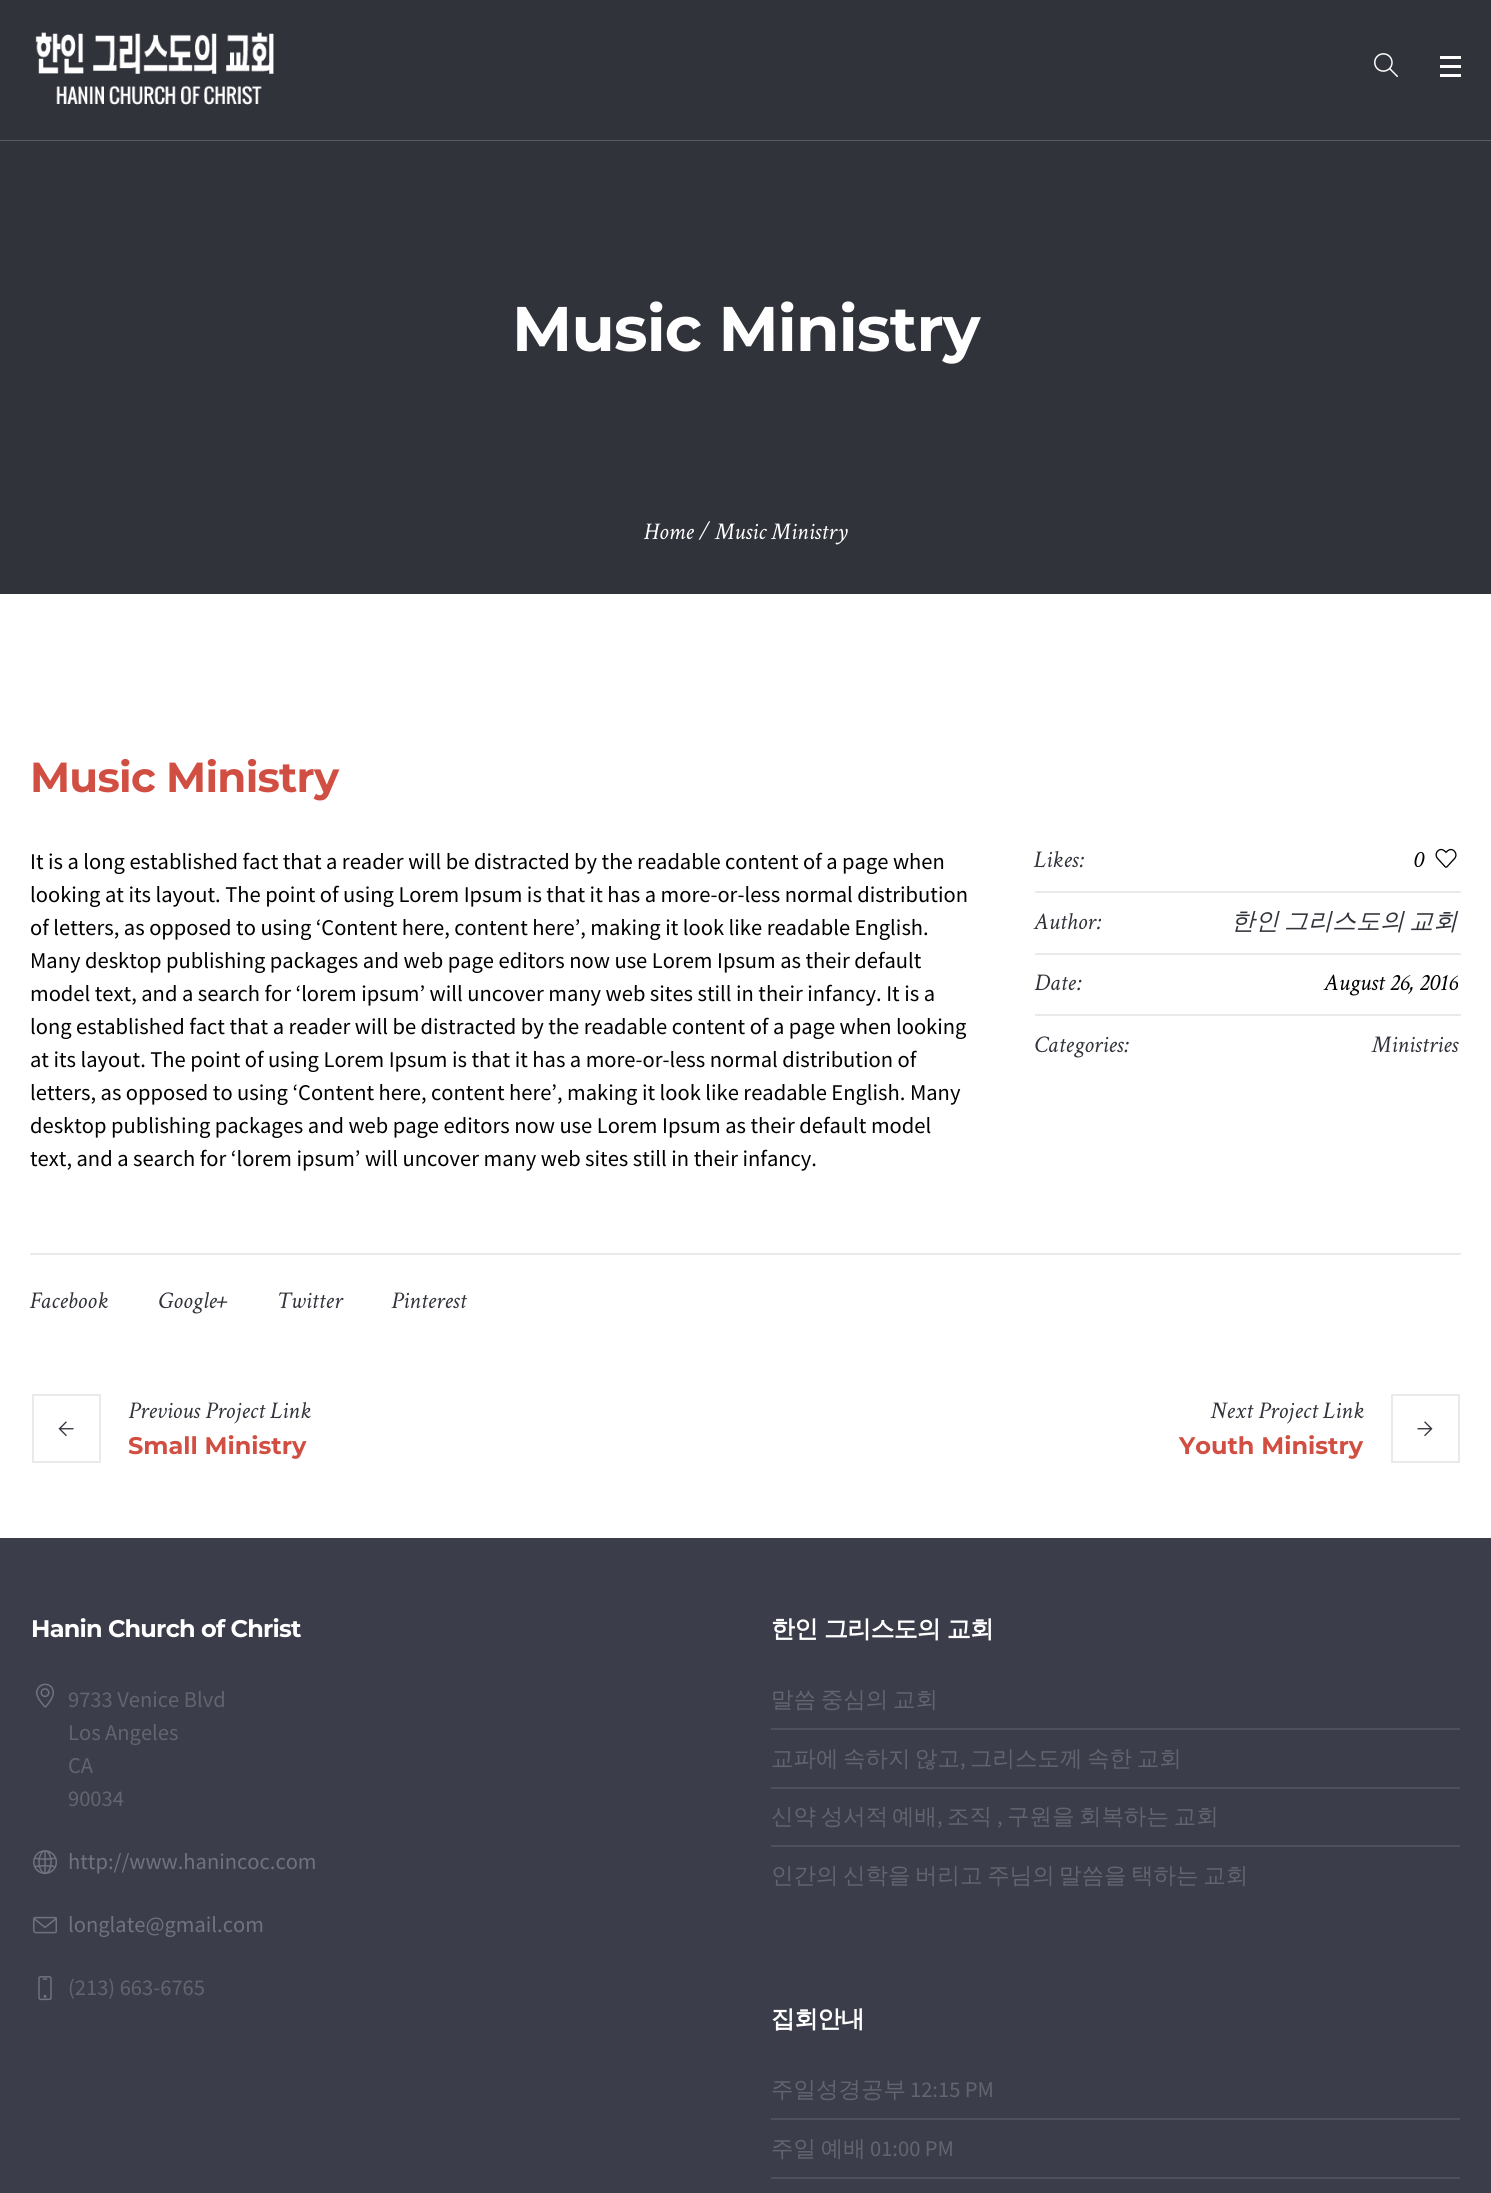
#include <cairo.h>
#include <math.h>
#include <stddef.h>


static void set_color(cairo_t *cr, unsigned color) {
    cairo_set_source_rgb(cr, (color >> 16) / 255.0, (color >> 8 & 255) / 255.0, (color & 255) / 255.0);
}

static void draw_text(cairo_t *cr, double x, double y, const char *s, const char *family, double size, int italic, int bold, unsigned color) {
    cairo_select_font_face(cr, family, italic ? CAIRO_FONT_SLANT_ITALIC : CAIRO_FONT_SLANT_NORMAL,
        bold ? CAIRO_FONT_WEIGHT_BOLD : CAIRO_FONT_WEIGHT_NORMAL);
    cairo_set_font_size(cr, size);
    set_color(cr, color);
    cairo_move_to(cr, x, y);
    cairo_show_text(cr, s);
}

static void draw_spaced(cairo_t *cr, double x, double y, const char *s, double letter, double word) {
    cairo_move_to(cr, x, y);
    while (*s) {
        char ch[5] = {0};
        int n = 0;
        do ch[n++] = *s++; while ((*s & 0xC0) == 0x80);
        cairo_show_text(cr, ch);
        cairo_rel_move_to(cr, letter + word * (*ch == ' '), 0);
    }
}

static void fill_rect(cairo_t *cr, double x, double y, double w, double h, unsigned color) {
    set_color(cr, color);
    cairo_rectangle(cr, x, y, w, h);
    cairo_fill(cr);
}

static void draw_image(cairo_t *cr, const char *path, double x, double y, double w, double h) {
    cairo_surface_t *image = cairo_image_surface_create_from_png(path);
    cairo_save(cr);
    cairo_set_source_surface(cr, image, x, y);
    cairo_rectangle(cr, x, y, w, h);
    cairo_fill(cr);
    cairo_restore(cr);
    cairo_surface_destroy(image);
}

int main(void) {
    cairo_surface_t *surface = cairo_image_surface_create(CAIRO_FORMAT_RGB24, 1491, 2193);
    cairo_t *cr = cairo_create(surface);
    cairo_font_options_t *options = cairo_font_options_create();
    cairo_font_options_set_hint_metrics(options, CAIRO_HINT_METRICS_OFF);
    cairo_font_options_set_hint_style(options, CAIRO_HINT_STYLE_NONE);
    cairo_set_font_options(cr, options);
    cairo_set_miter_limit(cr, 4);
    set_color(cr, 0xFFFFFF);
    cairo_paint(cr);
    fill_rect(cr, 0, 0, 1491, 140, 0x31333B);
    fill_rect(cr, 0, 140, 1491, 1, 0x5A5C62);
    draw_image(cr, "assets/img1.png", 35, 32, 239, 73);
    draw_image(cr, "assets/img2.png", 1374, 53, 25, 24);
    fill_rect(cr, 1440, 56, 21, 3, 0xFFFFFF);
    fill_rect(cr, 1440, 65, 21, 3, 0xFFFFFF);
    fill_rect(cr, 1440, 74, 21, 3, 0xFFFFFF);
    fill_rect(cr, 0, 141, 1491, 453, 0x31333B);
    cairo_select_font_face(cr, "Montserrat", CAIRO_FONT_SLANT_NORMAL, CAIRO_FONT_WEIGHT_BOLD);
    cairo_set_font_size(cr, 63);
    set_color(cr, 0xFFFFFF);
    draw_spaced(cr, 512, 351, "Music Ministry", -0.75, 0);
    draw_text(cr, 644, 539, "Home / Music Ministry", "Crimson Text", 24, 1, 0, 0xFFFFFF);
    cairo_select_font_face(cr, "Montserrat", CAIRO_FONT_SLANT_NORMAL, CAIRO_FONT_WEIGHT_BOLD);
    cairo_set_font_size(cr, 42);
    set_color(cr, 0xD14F42);
    draw_spaced(cr, 30, 792, "Music Ministry", -0.75, 0);
    draw_text(cr, 30, 869, "It is a long established fact that a reader will be distracted by the readable content of a page when", "Source Sans Pro", 22.5, 0, 0, 0x000000);
    draw_text(cr, 30, 902, "looking at its layout. The point of using Lorem Ipsum is that it has a more-or-less normal distribution", "Source Sans Pro", 22.5, 0, 0, 0x000000);
    draw_text(cr, 30, 935, "of letters, as opposed to using ‘Content here, content here’, making it look like readable English.", "Source Sans Pro", 22.5, 0, 0, 0x000000);
    draw_text(cr, 30, 968, "Many desktop publishing packages and web page editors now use Lorem Ipsum as their default", "Source Sans Pro", 22.5, 0, 0, 0x000000);
    draw_text(cr, 30, 1001, "model text, and a search for ‘lorem ipsum’ will uncover many web sites still in their infancy. It is a", "Source Sans Pro", 22.5, 0, 0, 0x000000);
    draw_text(cr, 30, 1034, "long established fact that a reader will be distracted by the readable content of a page when looking", "Source Sans Pro", 22.5, 0, 0, 0x000000);
    draw_text(cr, 30, 1067, "at its layout. The point of using Lorem Ipsum is that it has a more-or-less normal distribution of", "Source Sans Pro", 22.5, 0, 0, 0x000000);
    draw_text(cr, 30, 1100, "letters, as opposed to using ‘Content here, content here’, making it look like readable English. Many", "Source Sans Pro", 22.5, 0, 0, 0x000000);
    draw_text(cr, 30, 1133, "desktop publishing packages and web page editors now use Lorem Ipsum as their default model", "Source Sans Pro", 22.5, 0, 0, 0x000000);
    draw_text(cr, 30, 1166, "text, and a search for ‘lorem ipsum’ will uncover many web sites still in their infancy.", "Source Sans Pro", 22.5, 0, 0, 0x000000);
    fill_rect(cr, 1035, 891, 426, 2, 0xEAEAEA);
    draw_text(cr, 1034, 867, "Likes:", "Crimson Text", 24, 1, 0, 0x31333B);
    draw_text(cr, 1413, 867, "0", "Crimson Text", 24, 1, 0, 0x000000);
    draw_image(cr, "assets/img3.png", 1435, 848, 22, 20);
    fill_rect(cr, 1035, 953, 426, 2, 0xEAEAEA);
    draw_text(cr, 1034, 929, "Author:", "Crimson Text", 24, 1, 0, 0x31333B);
    cairo_save(cr);
    cairo_rectangle(cr, 1106, 906, 352, 33);
    cairo_clip(cr);
    cairo_select_font_face(cr, "WenQuanYi Zen Hei Medium", CAIRO_FONT_SLANT_ITALIC, CAIRO_FONT_WEIGHT_NORMAL);
    draw_spaced(cr, 1231, 929, "한인 그리스도의 교회", 0, -2);
    cairo_restore(cr);
    fill_rect(cr, 1035, 1014, 426, 2, 0xEAEAEA);
    draw_text(cr, 1034, 990, "Date:", "Crimson Text", 24, 1, 0, 0x31333B);
    cairo_save(cr);
    cairo_rectangle(cr, 1086, 968, 372, 33);
    cairo_clip(cr);
    draw_text(cr, 1324, 990, "August 26, 2016", "Crimson Text", 24, 1, 0, 0x000000);
    cairo_restore(cr);
    draw_text(cr, 1034, 1052, "Categories:", "Crimson Text", 24, 1, 0, 0x31333B);
    draw_text(cr, 1372, 1052, "Ministries", "Crimson Text", 24, 1, 0, 0x31333B);
    fill_rect(cr, 30, 1253, 1431, 2, 0xEAEAEA);
    draw_text(cr, 30, 1308, "Facebook", "Crimson Text", 24, 1, 0, 0x31333B);
    draw_text(cr, 158, 1308, "Google+", "Crimson Text", 24, 1, 0, 0x31333B);
    draw_text(cr, 277, 1308, "Twitter", "Crimson Text", 24, 1, 0, 0x31333B);
    draw_text(cr, 391, 1308, "Pinterest", "Crimson Text", 24, 1, 0, 0x31333B);
    cairo_rectangle(cr, 33, 1395, 67, 67);
    set_color(cr, 0xEAEAEA);
    cairo_stroke(cr);
    draw_image(cr, "assets/img4.png", 58, 1421, 16, 16);
    draw_text(cr, 128, 1418, "Previous Project Link", "Crimson Text", 24, 1, 0, 0x31333B);
    draw_text(cr, 128, 1454, "Small Ministry", "Montserrat", 24, 0, 1, 0xD14F42);
    draw_text(cr, 1210, 1418, "Next Project Link", "Crimson Text", 24, 1, 0, 0x31333B);
    cairo_rectangle(cr, 1392, 1395, 67, 67);
    set_color(cr, 0xEAEAEA);
    cairo_stroke(cr);
    draw_image(cr, "assets/img5.png", 1417, 1421, 16, 16);
    draw_text(cr, 1179, 1454, "Youth Ministry", "Montserrat", 24, 0, 1, 0xD14F42);
    fill_rect(cr, 0, 1538, 1491, 655, 0x3B3D4A);
    set_color(cr, 0xFFFFFF);
    draw_spaced(cr, 31, 1637, "Hanin Church of Christ", -0.75, 0);
    draw_image(cr, "assets/img6.png", 36, 1683, 18, 25);
    draw_text(cr, 68, 1707, "9733 Venice Blvd", "Source Sans Pro", 22.5, 0, 0, 0x62646E);
    draw_text(cr, 68, 1740, "Los Angeles", "Source Sans Pro", 22.5, 0, 0, 0x62646E);
    draw_text(cr, 68, 1773, "CA", "Source Sans Pro", 22.5, 0, 0, 0x62646E);
    draw_text(cr, 68, 1806, "90034", "Source Sans Pro", 22.5, 0, 0, 0x62646E);
    draw_image(cr, "assets/img7.png", 33, 1850, 24, 25);
    draw_text(cr, 68, 1869, "http://www.hanincoc.com", "Source Sans Pro", 22.5, 0, 0, 0x71727F);
    draw_image(cr, "assets/img8.png", 33, 1916, 24, 18);
    draw_text(cr, 68, 1932, "longlate@gmail.com", "Source Sans Pro", 22.5, 0, 0, 0x71727F);
    draw_image(cr, "assets/img9.png", 38, 1976, 14, 25);
    draw_text(cr, 68, 1995, "(213) 663-6765", "Source Sans Pro", 22.5, 0, 0, 0x62646E);
    cairo_select_font_face(cr, "WenQuanYi Zen Hei", CAIRO_FONT_SLANT_NORMAL, CAIRO_FONT_WEIGHT_BOLD);
    cairo_set_font_size(cr, 24);
    set_color(cr, 0xFFFFFF);
    draw_spaced(cr, 771, 1637, "한인 그리스도의 교회", -0.75, 0);
    cairo_select_font_face(cr, "WenQuanYi Zen Hei Medium", CAIRO_FONT_SLANT_NORMAL, CAIRO_FONT_WEIGHT_NORMAL);
    cairo_set_font_size(cr, 22.5);
    set_color(cr, 0x62646E);
    draw_spaced(cr, 771, 1707, "말씀 중심의 교회", 0, -2);
    fill_rect(cr, 771, 1728, 689, 2, 0x4F505C);
    draw_text(cr, 771, 1766, "교파에", "WenQuanYi Zen Hei Medium", 22.5, 0, 0, 0x62646E);
    draw_text(cr, 843, 1766, "속하지", "WenQuanYi Zen Hei Medium", 22.5, 0, 0, 0x62646E);
    draw_text(cr, 915, 1766, "않고", "WenQuanYi Zen Hei Medium", 22.5, 0, 0, 0x62646E);
    draw_text(cr, 960, 1766, ",", "Source Sans Pro", 22.5, 0, 0, 0x62646E);
    draw_text(cr, 970, 1766, "그리스도께", "WenQuanYi Zen Hei Medium", 22.5, 0, 0, 0x62646E);
    draw_spaced(cr, 1087, 1766, "속한 교회", 0, -2);
    fill_rect(cr, 771, 1787, 689, 2, 0x4F505C);
    set_color(cr, 0x62646E);
    draw_spaced(cr, 771, 1824, "신약 성서적", 0, -2);
    draw_text(cr, 892, 1824, "예배", "WenQuanYi Zen Hei Medium", 22.5, 0, 0, 0x62646E);
    draw_text(cr, 937, 1824, ",", "Source Sans Pro", 22.5, 0, 0, 0x62646E);
    draw_text(cr, 947, 1824, "조직", "WenQuanYi Zen Hei Medium", 22.5, 0, 0, 0x62646E);
    draw_text(cr, 997, 1824, ",", "Source Sans Pro", 22.5, 0, 0, 0x62646E);
    draw_text(cr, 1007, 1824, "구원을", "WenQuanYi Zen Hei Medium", 22.5, 0, 0, 0x62646E);
    draw_spaced(cr, 1079, 1824, "회복하는 교회", 0, -2);
    fill_rect(cr, 771, 1845, 689, 2, 0x4F505C);
    draw_text(cr, 771, 1883, "인간의", "WenQuanYi Zen Hei Medium", 22.5, 0, 0, 0x62646E);
    draw_text(cr, 843, 1883, "신학을", "WenQuanYi Zen Hei Medium", 22.5, 0, 0, 0x62646E);
    draw_spaced(cr, 915, 1883, "버리고 주님의", 0, -2);
    draw_text(cr, 1059, 1883, "말씀을", "WenQuanYi Zen Hei Medium", 22.5, 0, 0, 0x62646E);
    draw_spaced(cr, 1131, 1883, "택하는 교회", 0, -2);
    cairo_select_font_face(cr, "WenQuanYi Zen Hei", CAIRO_FONT_SLANT_NORMAL, CAIRO_FONT_WEIGHT_BOLD);
    cairo_set_font_size(cr, 24);
    set_color(cr, 0xFFFFFF);
    draw_spaced(cr, 771, 2027, "집회안내", -0.75, 0);
    draw_text(cr, 771, 2097, "주일성경공부", "WenQuanYi Zen Hei Medium", 22.5, 0, 0, 0x62646E);
    draw_text(cr, 910, 2097, "12:15 PM", "Source Sans Pro", 22.5, 0, 0, 0x62646E);
    fill_rect(cr, 771, 2118, 689, 2, 0x4F505C);
    cairo_select_font_face(cr, "WenQuanYi Zen Hei Medium", CAIRO_FONT_SLANT_NORMAL, CAIRO_FONT_WEIGHT_NORMAL);
    set_color(cr, 0x62646E);
    draw_spaced(cr, 771, 2156, "주일 예배", 0, -2);
    draw_text(cr, 870, 2156, "01:00 PM", "Source Sans Pro", 22.5, 0, 0, 0x62646E);
    fill_rect(cr, 771, 2177, 689, 2, 0x4F505C);
    cairo_surface_write_to_png(surface, "output.png");
    cairo_font_options_destroy(options);
    cairo_destroy(cr);
    cairo_surface_destroy(surface);
    return 0;
}
